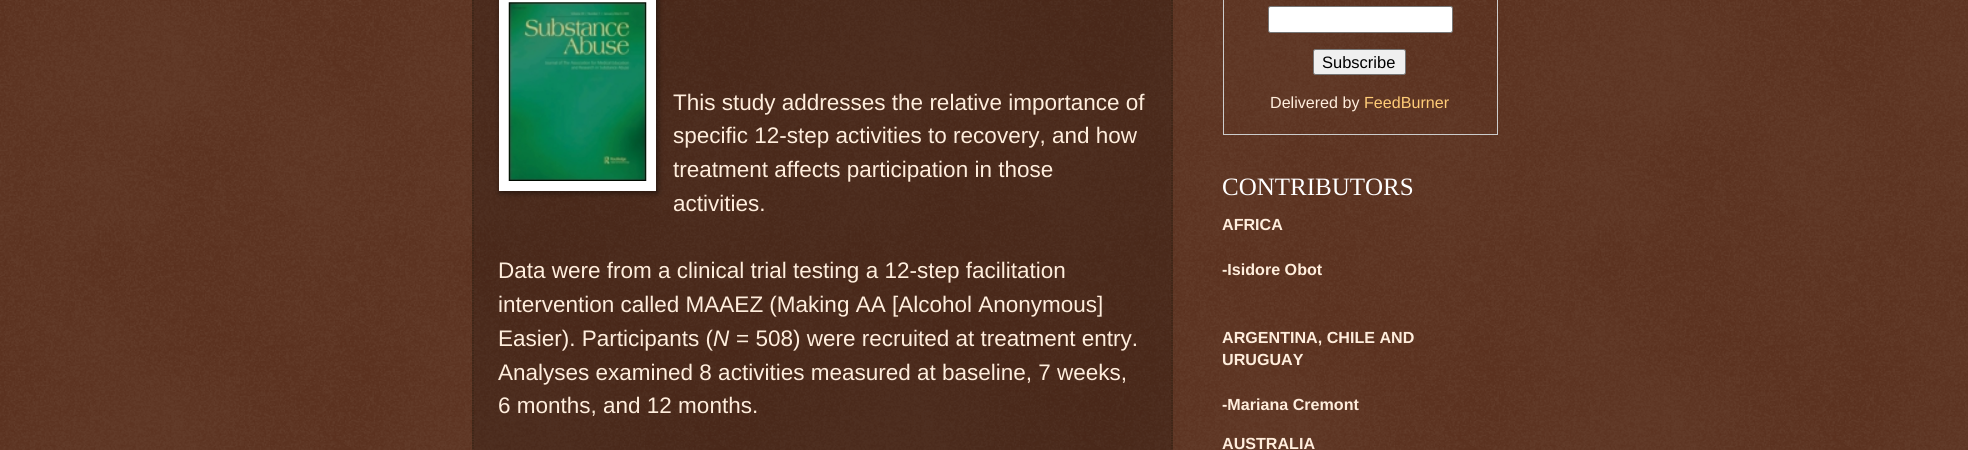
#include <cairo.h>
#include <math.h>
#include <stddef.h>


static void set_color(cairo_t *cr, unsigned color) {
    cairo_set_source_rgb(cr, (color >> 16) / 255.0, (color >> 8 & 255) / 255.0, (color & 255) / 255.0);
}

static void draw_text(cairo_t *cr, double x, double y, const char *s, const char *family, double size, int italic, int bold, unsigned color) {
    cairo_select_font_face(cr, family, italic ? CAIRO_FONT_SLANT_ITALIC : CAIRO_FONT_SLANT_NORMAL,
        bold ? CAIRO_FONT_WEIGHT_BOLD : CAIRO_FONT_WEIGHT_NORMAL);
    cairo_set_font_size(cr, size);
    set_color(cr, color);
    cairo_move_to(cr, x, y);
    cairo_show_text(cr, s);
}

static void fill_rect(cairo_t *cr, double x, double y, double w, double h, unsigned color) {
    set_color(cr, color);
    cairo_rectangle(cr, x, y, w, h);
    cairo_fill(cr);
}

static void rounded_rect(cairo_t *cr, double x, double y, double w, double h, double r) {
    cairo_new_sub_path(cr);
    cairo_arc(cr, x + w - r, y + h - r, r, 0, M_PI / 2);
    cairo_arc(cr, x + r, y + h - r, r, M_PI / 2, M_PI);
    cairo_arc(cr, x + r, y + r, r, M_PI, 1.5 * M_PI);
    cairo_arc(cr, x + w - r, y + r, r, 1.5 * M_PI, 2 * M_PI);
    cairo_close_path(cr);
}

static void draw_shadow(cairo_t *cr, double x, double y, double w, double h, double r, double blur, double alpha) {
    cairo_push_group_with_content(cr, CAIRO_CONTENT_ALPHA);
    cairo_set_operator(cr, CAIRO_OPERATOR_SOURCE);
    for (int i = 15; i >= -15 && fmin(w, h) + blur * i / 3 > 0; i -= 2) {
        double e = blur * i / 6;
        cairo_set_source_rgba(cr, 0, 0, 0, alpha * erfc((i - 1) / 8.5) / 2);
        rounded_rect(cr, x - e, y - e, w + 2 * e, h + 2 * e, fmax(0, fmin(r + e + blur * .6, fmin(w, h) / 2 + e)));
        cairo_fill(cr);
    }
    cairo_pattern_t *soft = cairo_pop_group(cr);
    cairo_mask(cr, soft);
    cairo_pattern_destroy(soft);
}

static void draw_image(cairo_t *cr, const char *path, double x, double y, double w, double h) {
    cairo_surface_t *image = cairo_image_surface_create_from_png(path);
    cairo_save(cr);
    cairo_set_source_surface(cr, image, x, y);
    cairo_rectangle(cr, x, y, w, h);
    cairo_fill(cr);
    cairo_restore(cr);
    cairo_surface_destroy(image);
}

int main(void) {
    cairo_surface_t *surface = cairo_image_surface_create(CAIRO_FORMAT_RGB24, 1968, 450);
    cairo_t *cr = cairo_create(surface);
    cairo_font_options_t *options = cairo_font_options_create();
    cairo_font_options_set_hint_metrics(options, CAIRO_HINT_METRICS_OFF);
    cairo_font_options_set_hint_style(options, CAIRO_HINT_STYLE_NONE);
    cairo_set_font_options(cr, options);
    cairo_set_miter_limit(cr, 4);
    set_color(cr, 0x441500);
    cairo_paint(cr);
    draw_image(cr, "assets/img1.png", 0, 0, 1968, 450);
    cairo_set_source_rgba(cr, 0, 0, 0, 0.2);
    cairo_rectangle(cr, 472, 0, 701, 450);
    cairo_fill(cr);
    cairo_new_path(cr);
    cairo_move_to(cr, 1172, -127.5);
    cairo_line_to(cr, 1172, 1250);
    set_color(cr, 0x332211);
    cairo_set_line_width(cr, 1.2);
    cairo_set_dash(cr, (double[]){1.25, 1.25}, 2, 0);
    cairo_stroke(cr);
    cairo_new_path(cr);
    cairo_move_to(cr, 473, -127.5);
    cairo_line_to(cr, 473, 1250);
    cairo_stroke(cr);
    set_color(cr, 0x000000);
    draw_shadow(cr, 500, -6, 158, 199, 0, 3, 0.5);
    fill_rect(cr, 499, 0, 157, 191, 0xFFFFFF);
    draw_image(cr, "assets/img2.png", 508, 2, 139, 179);
    draw_text(cr, 673, 110, "This study addresses the relative importance of", "Liberation Sans", 22.5, 0, 0, 0xFFEEDD);
    draw_text(cr, 673, 143, "specific 12-step activities to recovery, and how", "Liberation Sans", 22.5, 0, 0, 0xFFEEDD);
    draw_text(cr, 673, 177, "treatment affects participation in those", "Liberation Sans", 22.5, 0, 0, 0xFFEEDD);
    draw_text(cr, 673, 211, "activities.", "Liberation Sans", 22.5, 0, 0, 0xFFEEDD);
    draw_text(cr, 498, 278, "Data were from a clinical trial testing a 12-step facilitation", "Liberation Sans", 22.5, 0, 0, 0xFFEEDD);
    draw_text(cr, 498, 312, "intervention called MAAEZ (Making AA [Alcohol Anonymous]", "Liberation Sans", 22.5, 0, 0, 0xFFEEDD);
    draw_text(cr, 498, 346, "Easier). Participants (", "Liberation Sans", 22.5, 0, 0, 0xFFEEDD);
    draw_text(cr, 713, 346, "N", "Liberation Sans", 22.5, 1, 0, 0xFFEEDD);
    draw_text(cr, 736, 346, "= 508) were recruited at treatment entry.", "Liberation Sans", 22.5, 0, 0, 0xFFEEDD);
    draw_text(cr, 498, 380, "Analyses examined 8 activities measured at baseline, 7 weeks,", "Liberation Sans", 22.5, 0, 0, 0xFFEEDD);
    draw_text(cr, 498, 413, "6 months, and 12 months.", "Liberation Sans", 22.5, 0, 0, 0xFFEEDD);
    cairo_rectangle(cr, 1223.5, -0.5, 274, 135);
    set_color(cr, 0xCCCCCC);
    cairo_set_line_width(cr, 1);
    cairo_set_dash(cr, NULL, 0, 0);
    cairo_stroke(cr);
    set_color(cr, 0xFFFFFF);
    rounded_rect(cr, 1268.5, 6.5, 184, 26, 2);
    cairo_fill_preserve(cr);
    set_color(cr, 0x767676);
    cairo_stroke(cr);
    set_color(cr, 0xEFEFEF);
    rounded_rect(cr, 1313.5, 49.5, 92, 25, 2);
    cairo_fill_preserve(cr);
    set_color(cr, 0x767676);
    cairo_stroke(cr);
    draw_text(cr, 1322, 68, "Subscribe", "Liberation Sans", 16.5, 0, 0, 0x000000);
    draw_text(cr, 1270, 108, "Delivered by", "Liberation Sans", 16.1, 0, 0, 0xFFEEDD);
    draw_text(cr, 1364, 108, "FeedBurner", "Liberation Sans", 16.1, 0, 0, 0xFFCC77);
    draw_text(cr, 1222, 195, "CONTRIBUTORS", "Liberation Serif", 25, 0, 0, 0xFFFFFF);
    draw_text(cr, 1222, 230, "AFRICA", "Liberation Sans", 16.1, 0, 1, 0xFFEEDD);
    draw_text(cr, 1222, 275, "-Isidore Obot", "Liberation Sans", 16.1, 0, 1, 0xFFEEDD);
    draw_text(cr, 1222, 343, "ARGENTINA, CHILE AND", "Liberation Sans", 16.1, 0, 1, 0xFFEEDD);
    draw_text(cr, 1222, 365, "URUGUAY", "Liberation Sans", 16.1, 0, 1, 0xFFEEDD);
    draw_text(cr, 1222, 410, "-Mariana Cremont", "Liberation Sans", 16.1, 0, 1, 0xFFEEDD);
    draw_text(cr, 1222, 449, "AUSTRALIA", "Liberation Sans", 16.1, 0, 1, 0xFFEEDD);
    cairo_surface_write_to_png(surface, "output.png");
    cairo_font_options_destroy(options);
    cairo_destroy(cr);
    cairo_surface_destroy(surface);
    return 0;
}
